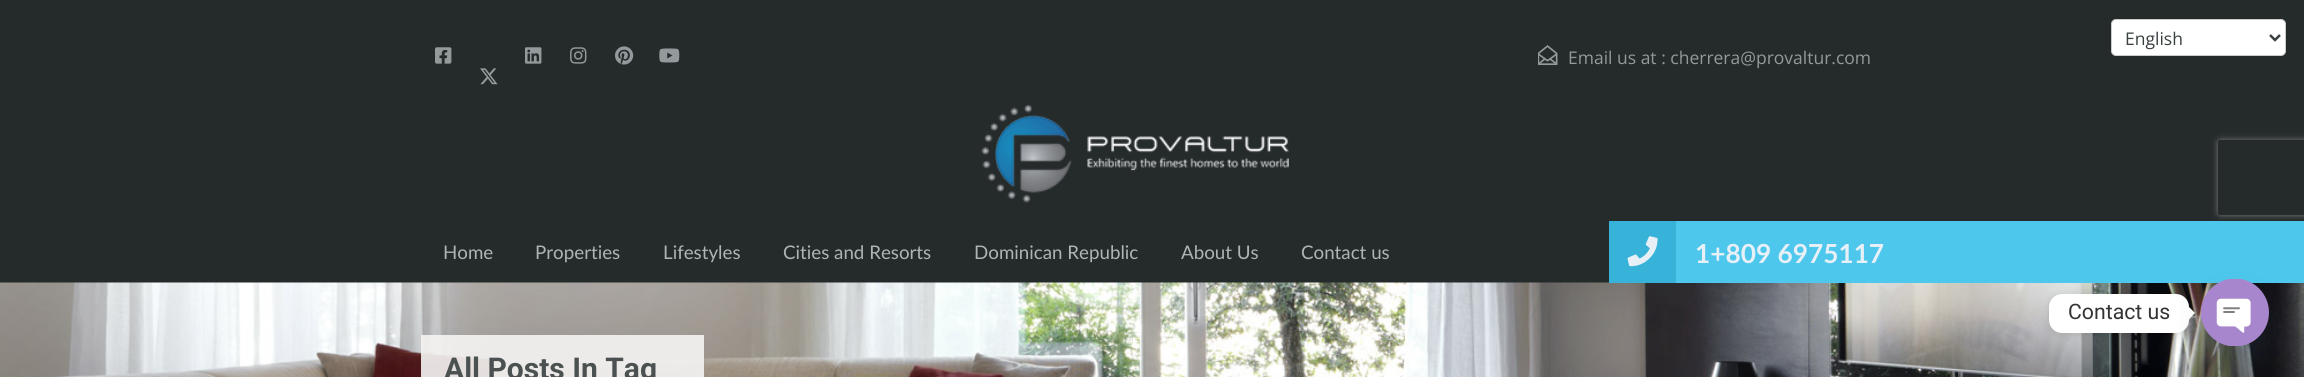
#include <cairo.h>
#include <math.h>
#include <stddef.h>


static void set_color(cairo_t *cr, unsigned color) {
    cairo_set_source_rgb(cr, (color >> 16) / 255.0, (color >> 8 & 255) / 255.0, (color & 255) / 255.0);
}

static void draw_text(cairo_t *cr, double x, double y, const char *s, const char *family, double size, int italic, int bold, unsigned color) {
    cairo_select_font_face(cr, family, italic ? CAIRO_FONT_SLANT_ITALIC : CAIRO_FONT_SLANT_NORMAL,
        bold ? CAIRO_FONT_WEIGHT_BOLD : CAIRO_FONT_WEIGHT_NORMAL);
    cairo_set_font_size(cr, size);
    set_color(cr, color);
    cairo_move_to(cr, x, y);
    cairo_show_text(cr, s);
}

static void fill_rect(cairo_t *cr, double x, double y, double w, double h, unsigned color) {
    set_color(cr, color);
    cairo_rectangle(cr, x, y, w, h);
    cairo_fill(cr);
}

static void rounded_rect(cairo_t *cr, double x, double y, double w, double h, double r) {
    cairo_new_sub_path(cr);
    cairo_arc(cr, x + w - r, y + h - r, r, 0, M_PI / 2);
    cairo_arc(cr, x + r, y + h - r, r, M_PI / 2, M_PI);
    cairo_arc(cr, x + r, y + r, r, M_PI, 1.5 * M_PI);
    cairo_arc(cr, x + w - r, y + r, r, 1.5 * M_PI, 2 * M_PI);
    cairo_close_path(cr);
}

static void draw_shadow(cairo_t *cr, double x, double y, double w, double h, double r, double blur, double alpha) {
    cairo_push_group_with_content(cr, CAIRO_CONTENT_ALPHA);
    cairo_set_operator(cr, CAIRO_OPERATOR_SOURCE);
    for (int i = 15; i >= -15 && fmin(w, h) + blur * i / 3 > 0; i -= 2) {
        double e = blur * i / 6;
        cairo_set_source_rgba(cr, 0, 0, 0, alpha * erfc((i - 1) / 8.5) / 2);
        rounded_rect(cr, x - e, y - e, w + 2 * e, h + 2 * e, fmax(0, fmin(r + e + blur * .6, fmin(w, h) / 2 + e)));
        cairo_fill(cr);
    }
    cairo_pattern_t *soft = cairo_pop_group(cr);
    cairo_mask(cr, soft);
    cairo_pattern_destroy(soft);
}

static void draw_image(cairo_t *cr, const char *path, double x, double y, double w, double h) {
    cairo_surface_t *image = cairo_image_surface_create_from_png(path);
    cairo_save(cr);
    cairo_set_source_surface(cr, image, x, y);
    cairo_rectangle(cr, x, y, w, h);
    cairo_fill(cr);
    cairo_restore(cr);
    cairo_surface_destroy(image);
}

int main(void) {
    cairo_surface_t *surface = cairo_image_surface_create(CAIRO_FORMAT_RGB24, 2304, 377);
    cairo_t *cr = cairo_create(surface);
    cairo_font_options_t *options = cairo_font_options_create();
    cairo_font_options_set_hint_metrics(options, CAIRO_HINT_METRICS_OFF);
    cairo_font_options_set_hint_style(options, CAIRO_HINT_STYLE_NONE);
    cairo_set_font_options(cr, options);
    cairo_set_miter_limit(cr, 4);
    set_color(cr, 0x252A2B);
    cairo_paint(cr);
    set_color(cr, 0xFFFFFF);
    rounded_rect(cr, 2111.5, 19.5, 174, 36, 4.5);
    cairo_fill_preserve(cr);
    set_color(cr, 0xCCCCCC);
    cairo_set_line_width(cr, 1);
    cairo_stroke(cr);
    cairo_new_path(cr);
    cairo_move_to(cr, 2270, 35);
    cairo_line_to(cr, 2275, 40);
    cairo_line_to(cr, 2280, 35);
    set_color(cr, 0x394041);
    cairo_set_line_width(cr, 2.5);
    cairo_stroke(cr);
    draw_text(cr, 2125, 45, "English", "Open Sans", 17.5, 0, 0, 0x394041);
    draw_image(cr, "assets/img1.png", 435, 47, 17, 17);
    draw_image(cr, "assets/img2.png", 525, 47, 17, 17);
    draw_image(cr, "assets/img3.png", 570, 47, 17, 17);
    draw_image(cr, "assets/img4.png", 615, 46, 19, 19);
    draw_image(cr, "assets/img5.png", 659, 48, 21, 15);
    draw_image(cr, "assets/img6.png", 480, 68, 18, 17);
    draw_image(cr, "assets/img7.png", 1538, 45, 20, 20);
    draw_text(cr, 1568, 64, "Email us at : cherrera@provaltur.com", "Open Sans", 17.5, 0, 0, 0x929A9B);
    draw_image(cr, "assets/img8.png", 981, 105, 308, 98);
    draw_text(cr, 443, 259, "Home", "Lato", 18.75, 0, 0, 0xAFB4B5);
    draw_text(cr, 535, 259, "Properties", "Lato", 18.75, 0, 0, 0xAFB4B5);
    draw_text(cr, 663, 259, "Lifestyles", "Lato", 18.75, 0, 0, 0xAFB4B5);
    draw_text(cr, 783, 259, "Cities and Resorts", "Lato", 18.75, 0, 0, 0xAFB4B5);
    draw_text(cr, 974, 259, "Dominican Republic", "Lato", 18.75, 0, 0, 0xAFB4B5);
    draw_text(cr, 1181, 259, "About Us", "Lato", 18.75, 0, 0, 0xAFB4B5);
    draw_text(cr, 1301, 259, "Contact us", "Lato", 18.75, 0, 0, 0xAFB4B5);
    draw_image(cr, "assets/img11.png", 0, 282, 2304, 95);
    fill_rect(cr, 1676, 221, 628, 62, 0x4DC7EC);
    fill_rect(cr, 1609, 221, 67, 62, 0x37B3D9);
    draw_image(cr, "assets/img9.png", 1627, 236, 31, 31);
    draw_text(cr, 1695, 263, "1+809 6975117", "Lato", 26.25, 0, 1, 0xE7EFF7);
    cairo_save(cr);
    cairo_set_fill_rule(cr, CAIRO_FILL_RULE_EVEN_ODD);
    cairo_new_path(cr);
    cairo_move_to(cr, 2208, 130);
    cairo_line_to(cr, 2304, 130);
    cairo_line_to(cr, 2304, 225);
    cairo_line_to(cr, 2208, 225);
    cairo_close_path(cr);
    cairo_move_to(cr, 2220.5, 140);
    cairo_line_to(cr, 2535.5, 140);
    cairo_curve_to(cr, 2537, 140, 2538, 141, 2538, 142.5);
    cairo_line_to(cr, 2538, 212.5);
    cairo_curve_to(cr, 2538, 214, 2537, 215, 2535.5, 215);
    cairo_line_to(cr, 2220.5, 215);
    cairo_curve_to(cr, 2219, 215, 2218, 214, 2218, 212.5);
    cairo_line_to(cr, 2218, 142.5);
    cairo_curve_to(cr, 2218, 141, 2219, 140, 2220.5, 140);
    cairo_close_path(cr);
    cairo_clip(cr);
    set_color(cr, 0x808080);
    draw_shadow(cr, 2218, 140, 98, 75, 2.5, 3, 1);
    cairo_restore(cr);
    set_color(cr, 0x000000);
    draw_shadow(cr, 2049, 295, 140, 39, 13, 5, 0.15);
    set_color(cr, 0xFFFFFF);
    rounded_rect(cr, 2049, 294, 140, 39, 13);
    cairo_fill(cr);
    draw_text(cr, 2068, 319, "Contact us", "Roboto", 21.25, 0, 0, 0x333333);
    set_color(cr, 0xFFFFFF);
    cairo_new_path(cr);
    cairo_move_to(cr, 2189, 319.5);
    cairo_line_to(cr, 2189, 307);
    cairo_line_to(cr, 2195, 313);
    cairo_close_path(cr);
    cairo_fill(cr);
    set_color(cr, 0x49687E);
    draw_shadow(cr, 2201, 299, 68, 67, 33.5, 15, 0.16);
    draw_image(cr, "assets/img10.png", 2201, 279, 68, 67);
    cairo_set_source_rgba(cr, 0.961, 0.957, 0.953, 0.9);
    cairo_rectangle(cr, 421, 335, 283, 42);
    cairo_fill(cr);
    draw_text(cr, 444, 379, "All Posts In Tag", "Roboto", 30, 0, 1, 0x4B5151);
    cairo_surface_write_to_png(surface, "output.png");
    cairo_font_options_destroy(options);
    cairo_destroy(cr);
    cairo_surface_destroy(surface);
    return 0;
}
